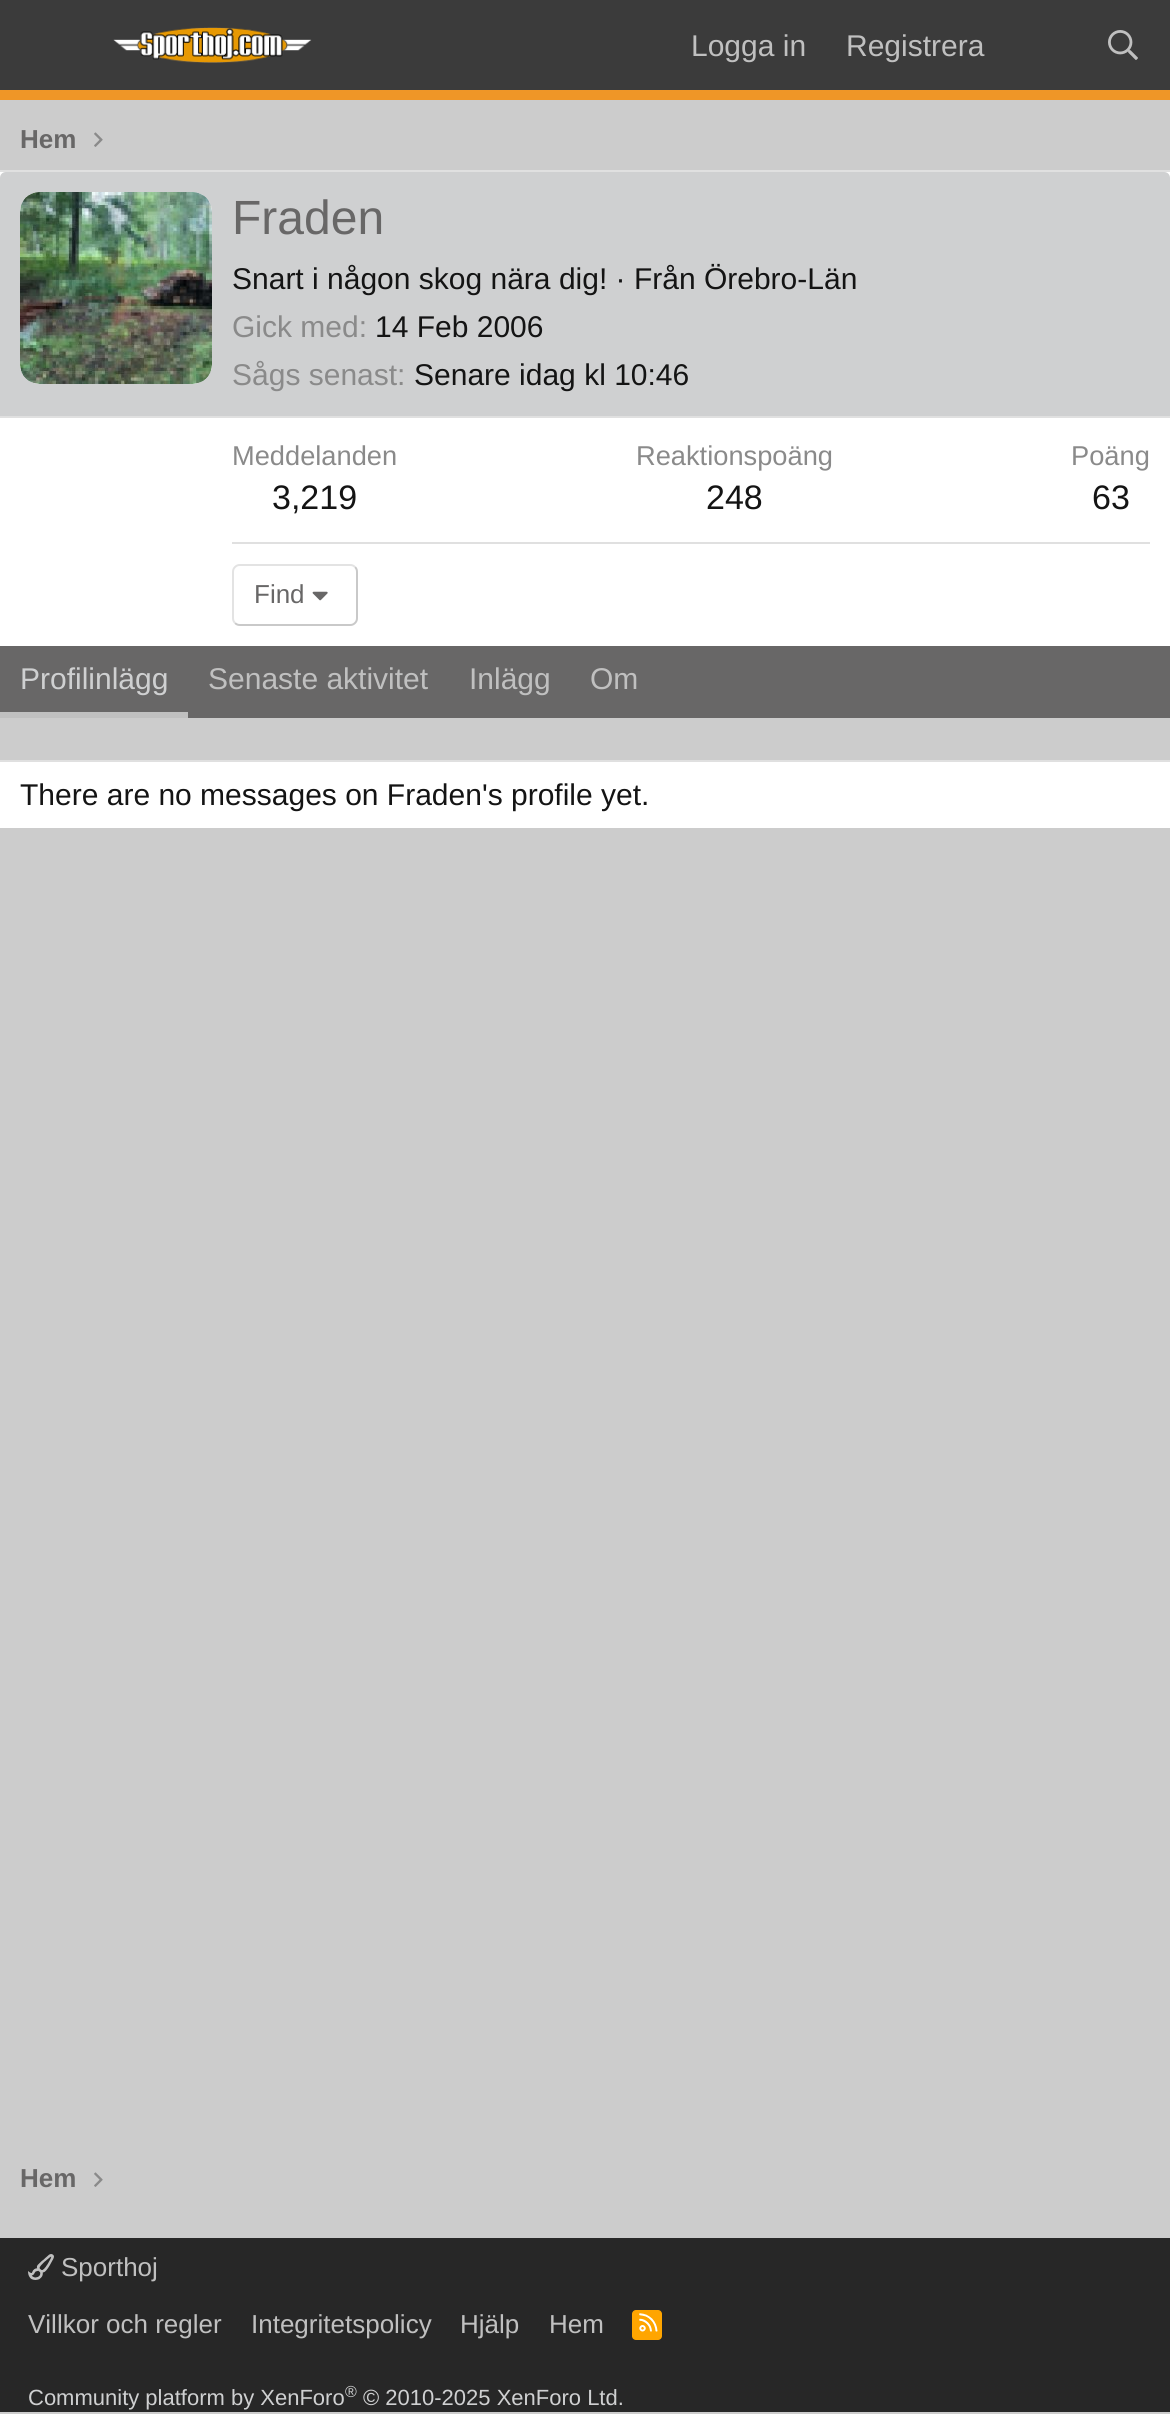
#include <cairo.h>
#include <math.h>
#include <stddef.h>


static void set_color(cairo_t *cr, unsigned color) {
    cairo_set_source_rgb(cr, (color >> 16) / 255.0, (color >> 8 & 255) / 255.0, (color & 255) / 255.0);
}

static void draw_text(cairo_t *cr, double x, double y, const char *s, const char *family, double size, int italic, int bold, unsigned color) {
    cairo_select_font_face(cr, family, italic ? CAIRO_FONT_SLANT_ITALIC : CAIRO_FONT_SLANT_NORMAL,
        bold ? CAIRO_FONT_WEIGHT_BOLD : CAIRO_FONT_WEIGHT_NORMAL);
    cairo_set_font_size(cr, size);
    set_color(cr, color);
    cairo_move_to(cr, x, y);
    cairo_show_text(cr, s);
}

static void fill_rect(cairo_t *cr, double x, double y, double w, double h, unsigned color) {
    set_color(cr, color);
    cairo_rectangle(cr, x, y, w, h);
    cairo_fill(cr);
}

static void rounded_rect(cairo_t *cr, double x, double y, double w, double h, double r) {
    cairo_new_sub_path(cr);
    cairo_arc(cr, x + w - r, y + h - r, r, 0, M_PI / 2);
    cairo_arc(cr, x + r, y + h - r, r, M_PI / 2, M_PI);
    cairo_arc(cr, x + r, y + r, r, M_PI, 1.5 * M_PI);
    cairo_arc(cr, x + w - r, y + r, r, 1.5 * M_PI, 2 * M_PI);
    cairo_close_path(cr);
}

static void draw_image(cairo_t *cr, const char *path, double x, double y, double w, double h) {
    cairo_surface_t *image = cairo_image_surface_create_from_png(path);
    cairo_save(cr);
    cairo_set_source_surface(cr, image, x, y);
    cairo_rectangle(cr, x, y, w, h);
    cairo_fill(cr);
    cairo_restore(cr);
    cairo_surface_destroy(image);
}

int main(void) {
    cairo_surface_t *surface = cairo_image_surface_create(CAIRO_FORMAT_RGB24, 1170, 2433);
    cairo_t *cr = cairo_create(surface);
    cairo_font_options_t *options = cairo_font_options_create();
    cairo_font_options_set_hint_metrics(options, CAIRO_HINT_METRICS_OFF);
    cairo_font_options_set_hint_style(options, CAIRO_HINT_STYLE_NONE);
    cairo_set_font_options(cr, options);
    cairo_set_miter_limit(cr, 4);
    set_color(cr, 0xCCCCCC);
    cairo_paint(cr);
    fill_rect(cr, 0, 90, 1170, 10, 0xEF9627);
    fill_rect(cr, 0, 0, 1170, 90, 0x3B3B3B);
    draw_image(cr, "assets/img1.png", 113, 27, 199, 36);
    draw_text(cr, 691, 56, "Logga in", "Liberation Sans", 30, 0, 0, 0xC0C0C0);
    draw_text(cr, 846, 56, "Registrera", "Liberation Sans", 30, 0, 0, 0xC0C0C0);
    draw_image(cr, "assets/img2.png", 1108, 30, 30, 30);
    draw_text(cr, 20, 148, "Hem", "Liberation Sans", 26, 0, 1, 0x686767);
    draw_image(cr, "assets/img3.png", 94, 132, 9, 15);
    fill_rect(cr, 0, 172, 1170, 474, 0xFFFFFF);
    fill_rect(cr, 0, 170, 1170, 2, 0xE0E0E0);
    set_color(cr, 0xCFD0D1);
    cairo_new_path(cr);
    cairo_move_to(cr, 6, 172);
    cairo_line_to(cr, 1164, 172);
    cairo_curve_to(cr, 1167.5, 172, 1170, 174.5, 1170, 178);
    cairo_line_to(cr, 1170, 418);
    cairo_line_to(cr, 0, 418);
    cairo_line_to(cr, 0, 178);
    cairo_curve_to(cr, 0, 174.5, 2.5, 172, 6, 172);
    cairo_close_path(cr);
    cairo_fill(cr);
    fill_rect(cr, 0, 416, 1170, 2, 0xE0E0E0);
    set_color(cr, 0xFFFFFF);
    rounded_rect(cr, 20, 192, 192, 192, 20);
    cairo_fill(cr);
    draw_image(cr, "assets/img4.png", 20, 192, 192, 192);
    draw_text(cr, 232, 234, "Fraden", "Liberation Sans", 48, 0, 0, 0x686767);
    draw_text(cr, 232, 289, "Snart i någon skog nära dig! · Från Örebro-Län", "Liberation Sans", 30, 0, 0, 0x141414);
    draw_text(cr, 232, 337, "Gick med:", "Liberation Sans", 30, 0, 0, 0x8A8A8A);
    draw_text(cr, 375, 337, "14 Feb 2006", "Liberation Sans", 30, 0, 0, 0x141414);
    draw_text(cr, 232, 385, "Sågs senast:", "Liberation Sans", 30, 0, 0, 0x8A8A8A);
    draw_text(cr, 414, 385, "Senare idag kl 10:46", "Liberation Sans", 30, 0, 0, 0x141414);
    draw_text(cr, 232, 465, "Meddelanden", "Liberation Sans", 27.25, 0, 0, 0x8A8A8A);
    draw_text(cr, 272, 509, "3,219", "Liberation Sans", 34, 0, 0, 0x141414);
    draw_text(cr, 636, 465, "Reaktionspoäng", "Liberation Sans", 27.25, 0, 0, 0x8A8A8A);
    draw_text(cr, 706, 509, "248", "Liberation Sans", 34, 0, 0, 0x141414);
    draw_text(cr, 1071, 465, "Poäng", "Liberation Sans", 27.25, 0, 0, 0x8A8A8A);
    draw_text(cr, 1092, 509, "63", "Liberation Sans", 34, 0, 0, 0x141414);
    fill_rect(cr, 232, 542, 918, 2, 0xE0E0E0);
    cairo_new_path(cr);
    cairo_move_to(cr, 355, 567);
    cairo_curve_to(cr, 356.5, 568.5, 357, 570, 357, 572);
    cairo_line_to(cr, 357, 618);
    cairo_curve_to(cr, 357, 620, 356.5, 621.5, 355, 623);
    cairo_curve_to(cr, 353.5, 624.5, 352, 625, 350, 625);
    cairo_line_to(cr, 240, 625);
    cairo_curve_to(cr, 238, 625, 236.5, 624.5, 235, 623);
    set_color(cr, 0xC9C9C9);
    cairo_stroke(cr);
    cairo_new_path(cr);
    cairo_move_to(cr, 235, 623);
    cairo_curve_to(cr, 233.5, 621.5, 233, 620, 233, 618);
    cairo_line_to(cr, 233, 572);
    cairo_curve_to(cr, 233, 570, 233.5, 568.5, 235, 567);
    cairo_curve_to(cr, 236.5, 565.5, 238, 565, 240, 565);
    cairo_line_to(cr, 350, 565);
    cairo_curve_to(cr, 352, 565, 353.5, 565.5, 355, 567);
    set_color(cr, 0xE3E3E3);
    cairo_stroke(cr);
    draw_text(cr, 254, 603, "Find", "Liberation Sans", 26, 0, 0, 0x686767);
    draw_image(cr, "assets/img5.png", 312, 591, 16, 10);
    fill_rect(cr, 0, 646, 1170, 72, 0x686767);
    fill_rect(cr, 0, 712, 188, 6, 0xC0C0C0);
    draw_text(cr, 20, 689, "Profilinlägg", "Liberation Sans", 30, 0, 0, 0xCFD0D1);
    draw_text(cr, 208, 689, "Senaste aktivitet", "Liberation Sans", 30, 0, 0, 0xC0C0C0);
    draw_text(cr, 469, 689, "Inlägg", "Liberation Sans", 30, 0, 0, 0xC0C0C0);
    draw_text(cr, 590, 689, "Om", "Liberation Sans", 30, 0, 0, 0xC0C0C0);
    fill_rect(cr, 0, 762, 1170, 66, 0xFFFFFF);
    fill_rect(cr, 0, 760, 1170, 2, 0xE0E0E0);
    draw_text(cr, 20, 805, "There are no messages on Fraden's profile yet.", "Liberation Sans", 30, 0, 0, 0x141414);
    draw_text(cr, 20, 2187, "Hem", "Liberation Sans", 26, 0, 1, 0x686767);
    draw_image(cr, "assets/img3.png", 94, 2172, 9, 15);
    fill_rect(cr, 0, 2238, 1170, 174, 0x272727);
    draw_image(cr, "assets/img6.png", 28, 2254, 26, 26);
    draw_text(cr, 61, 2276, "Sporthoj", "Liberation Sans", 26, 0, 0, 0xC0C0C0);
    draw_text(cr, 28, 2333, "Villkor och regler", "Liberation Sans", 26, 0, 0, 0xC0C0C0);
    draw_text(cr, 251, 2333, "Integritetspolicy", "Liberation Sans", 26, 0, 0, 0xC0C0C0);
    draw_text(cr, 460, 2333, "Hjälp", "Liberation Sans", 26, 0, 0, 0xC0C0C0);
    draw_text(cr, 549, 2333, "Hem", "Liberation Sans", 26, 0, 0, 0xC0C0C0);
    set_color(cr, 0xFFA500);
    rounded_rect(cr, 632, 2310, 30, 30, 4);
    cairo_fill(cr);
    draw_image(cr, "assets/img7.png", 639, 2313, 19, 19);
    draw_text(cr, 28, 2405, "Community platform by XenForo", "Liberation Sans", 22, 0, 0, 0xCFD0D1);
    draw_text(cr, 345, 2397, "®", "Liberation Sans", 16, 0, 0, 0xCFD0D1);
    draw_text(cr, 363, 2405, "© 2010-2025 XenForo Ltd.", "Liberation Sans", 22, 0, 0, 0xCFD0D1);
    fill_rect(cr, 0, 2414, 1170, 19, 0xFFFFFF);
    cairo_surface_write_to_png(surface, "output.png");
    cairo_font_options_destroy(options);
    cairo_destroy(cr);
    cairo_surface_destroy(surface);
    return 0;
}
